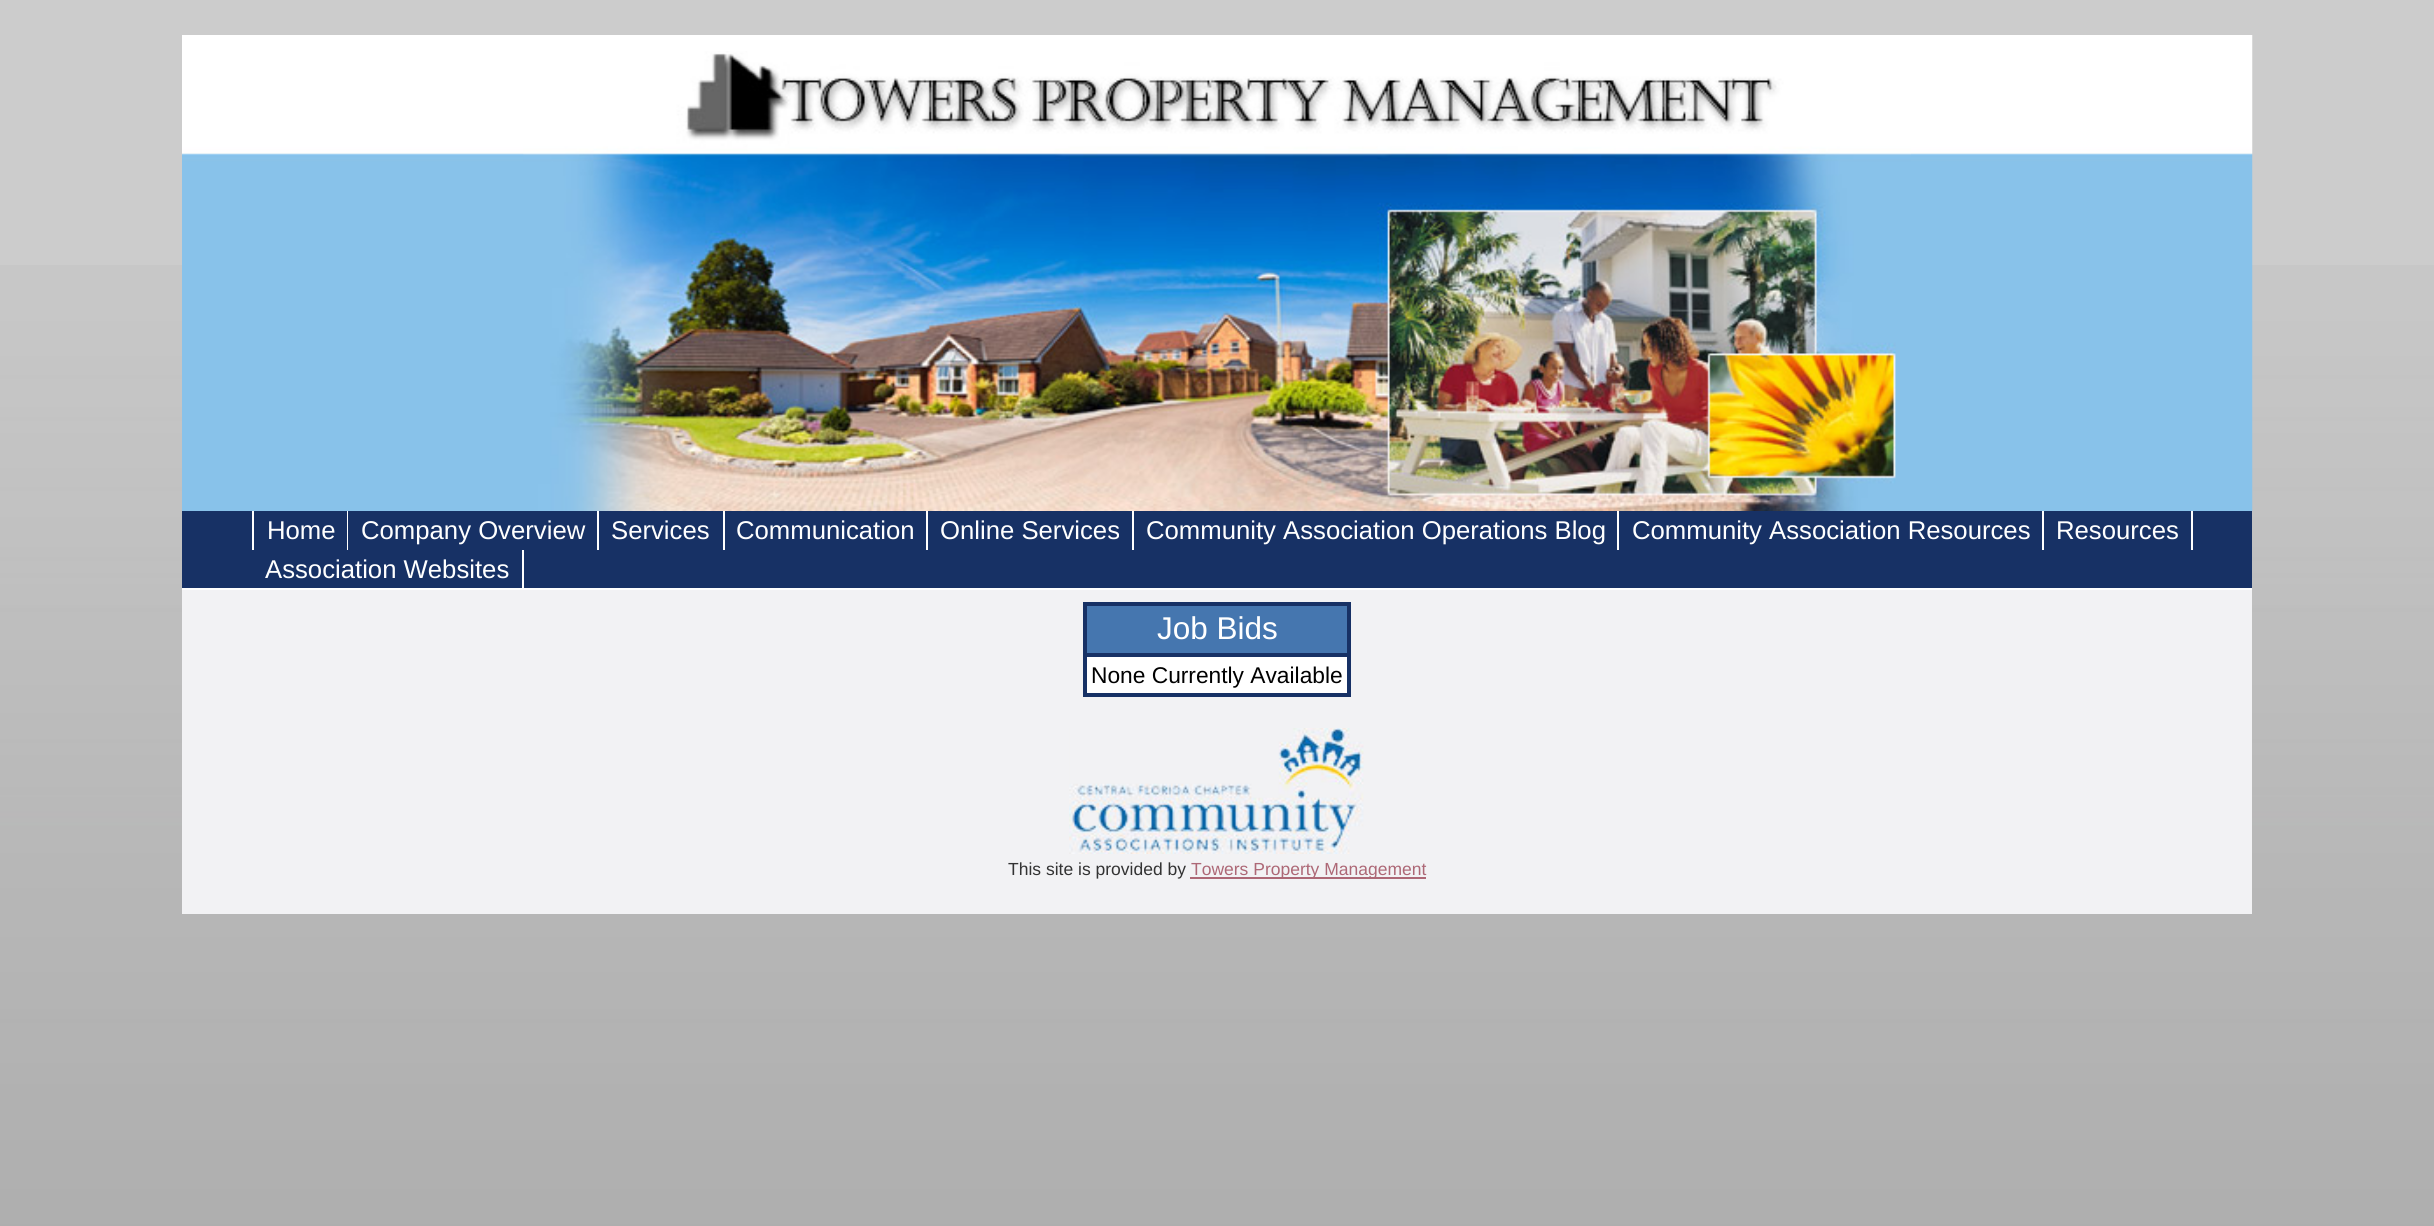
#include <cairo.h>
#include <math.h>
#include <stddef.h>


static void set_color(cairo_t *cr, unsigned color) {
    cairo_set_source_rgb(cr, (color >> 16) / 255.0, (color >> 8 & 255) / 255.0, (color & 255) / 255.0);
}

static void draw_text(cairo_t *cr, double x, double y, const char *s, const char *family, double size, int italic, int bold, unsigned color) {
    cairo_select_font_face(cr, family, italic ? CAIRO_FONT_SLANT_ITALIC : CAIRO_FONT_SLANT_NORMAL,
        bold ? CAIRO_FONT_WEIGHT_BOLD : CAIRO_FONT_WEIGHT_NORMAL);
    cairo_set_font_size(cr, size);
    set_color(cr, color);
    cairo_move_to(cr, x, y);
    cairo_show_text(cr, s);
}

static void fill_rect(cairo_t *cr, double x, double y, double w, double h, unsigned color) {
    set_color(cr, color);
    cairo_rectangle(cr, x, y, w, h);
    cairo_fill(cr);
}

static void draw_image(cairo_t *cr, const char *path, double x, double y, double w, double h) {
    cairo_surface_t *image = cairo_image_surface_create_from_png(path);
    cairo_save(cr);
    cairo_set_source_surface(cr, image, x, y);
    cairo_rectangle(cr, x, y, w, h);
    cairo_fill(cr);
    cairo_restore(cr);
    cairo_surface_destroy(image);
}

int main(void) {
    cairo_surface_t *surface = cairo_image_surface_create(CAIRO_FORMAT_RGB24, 2434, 1226);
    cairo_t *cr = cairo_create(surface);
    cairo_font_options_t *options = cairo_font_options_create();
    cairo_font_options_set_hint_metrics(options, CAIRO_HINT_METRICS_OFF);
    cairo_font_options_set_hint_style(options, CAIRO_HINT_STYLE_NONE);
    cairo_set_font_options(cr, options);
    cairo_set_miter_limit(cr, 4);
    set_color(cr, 0xCCCCCC);
    cairo_paint(cr);
    draw_image(cr, "assets/img1.png", 0, 265, 2434, 961);
    draw_image(cr, "assets/img2.png", 182, 35, 2071, 476);
    draw_image(cr, "assets/img3.png", 523, 51, 1388, 460);
    fill_rect(cr, 182, 511, 2070, 77, 0x173165);
    fill_rect(cr, 182, 588, 2070, 2, 0xFFFFFF);
    fill_rect(cr, 347, 511, 1, 39, 0xFFFFFF);
    fill_rect(cr, 252, 511, 2, 39, 0xFFFFFF);
    draw_text(cr, 267, 539, "Home", "Liberation Sans", 25.7, 0, 0, 0xFFFFFF);
    fill_rect(cr, 597, 511, 2, 39, 0xFFFFFF);
    draw_text(cr, 361, 539, "Company Overview", "Liberation Sans", 25.7, 0, 0, 0xFFFFFF);
    fill_rect(cr, 723, 511, 2, 39, 0xFFFFFF);
    draw_text(cr, 611, 539, "Services", "Liberation Sans", 25.7, 0, 0, 0xFFFFFF);
    fill_rect(cr, 926, 511, 2, 39, 0xFFFFFF);
    draw_text(cr, 736, 539, "Communication", "Liberation Sans", 25.7, 0, 0, 0xFFFFFF);
    fill_rect(cr, 1132, 511, 2, 39, 0xFFFFFF);
    draw_text(cr, 940, 539, "Online Services", "Liberation Sans", 25.7, 0, 0, 0xFFFFFF);
    fill_rect(cr, 1617, 511, 2, 39, 0xFFFFFF);
    draw_text(cr, 1146, 539, "Community Association Operations Blog", "Liberation Sans", 25.7, 0, 0, 0xFFFFFF);
    fill_rect(cr, 2042, 511, 2, 39, 0xFFFFFF);
    draw_text(cr, 1632, 539, "Community Association Resources", "Liberation Sans", 25.7, 0, 0, 0xFFFFFF);
    fill_rect(cr, 2191, 511, 2, 39, 0xFFFFFF);
    draw_text(cr, 2056, 539, "Resources", "Liberation Sans", 25.7, 0, 0, 0xFFFFFF);
    fill_rect(cr, 522, 550, 2, 38, 0xFFFFFF);
    draw_text(cr, 265, 578, "Association Websites", "Liberation Sans", 25.7, 0, 0, 0xFFFFFF);
    fill_rect(cr, 182, 590, 2070, 324, 0xF2F2F4);
    cairo_rectangle(cr, 1084, 603, 266, 93);
    set_color(cr, 0x173165);
    cairo_stroke(cr);
    set_color(cr, 0x4576AF);
    cairo_rectangle(cr, 1086, 605, 262, 49);
    cairo_fill_preserve(cr);
    set_color(cr, 0x173165);
    cairo_stroke(cr);
    draw_text(cr, 1157, 639, "Job Bids", "Liberation Sans", 31.5, 0, 0, 0xFFFFFF);
    cairo_rectangle(cr, 1086, 656, 262, 38);
    cairo_fill_preserve(cr);
    set_color(cr, 0x173165);
    cairo_stroke(cr);
    draw_text(cr, 1091, 683, "None Currently Available", "Liberation Sans", 22.75, 0, 0, 0x000000);
    draw_image(cr, "assets/img4.png", 1069, 728, 295, 126);
    draw_text(cr, 1008, 875, "This site is provided by", "Liberation Sans", 17.5, 0, 0, 0x333333);
    fill_rect(cr, 1190, 877, 236, 2, 0xAD6876);
    draw_text(cr, 1191, 875, "Towers Property Management", "Liberation Sans", 17.5, 0, 0, 0xAD6876);
    cairo_surface_write_to_png(surface, "output.png");
    cairo_font_options_destroy(options);
    cairo_destroy(cr);
    cairo_surface_destroy(surface);
    return 0;
}
